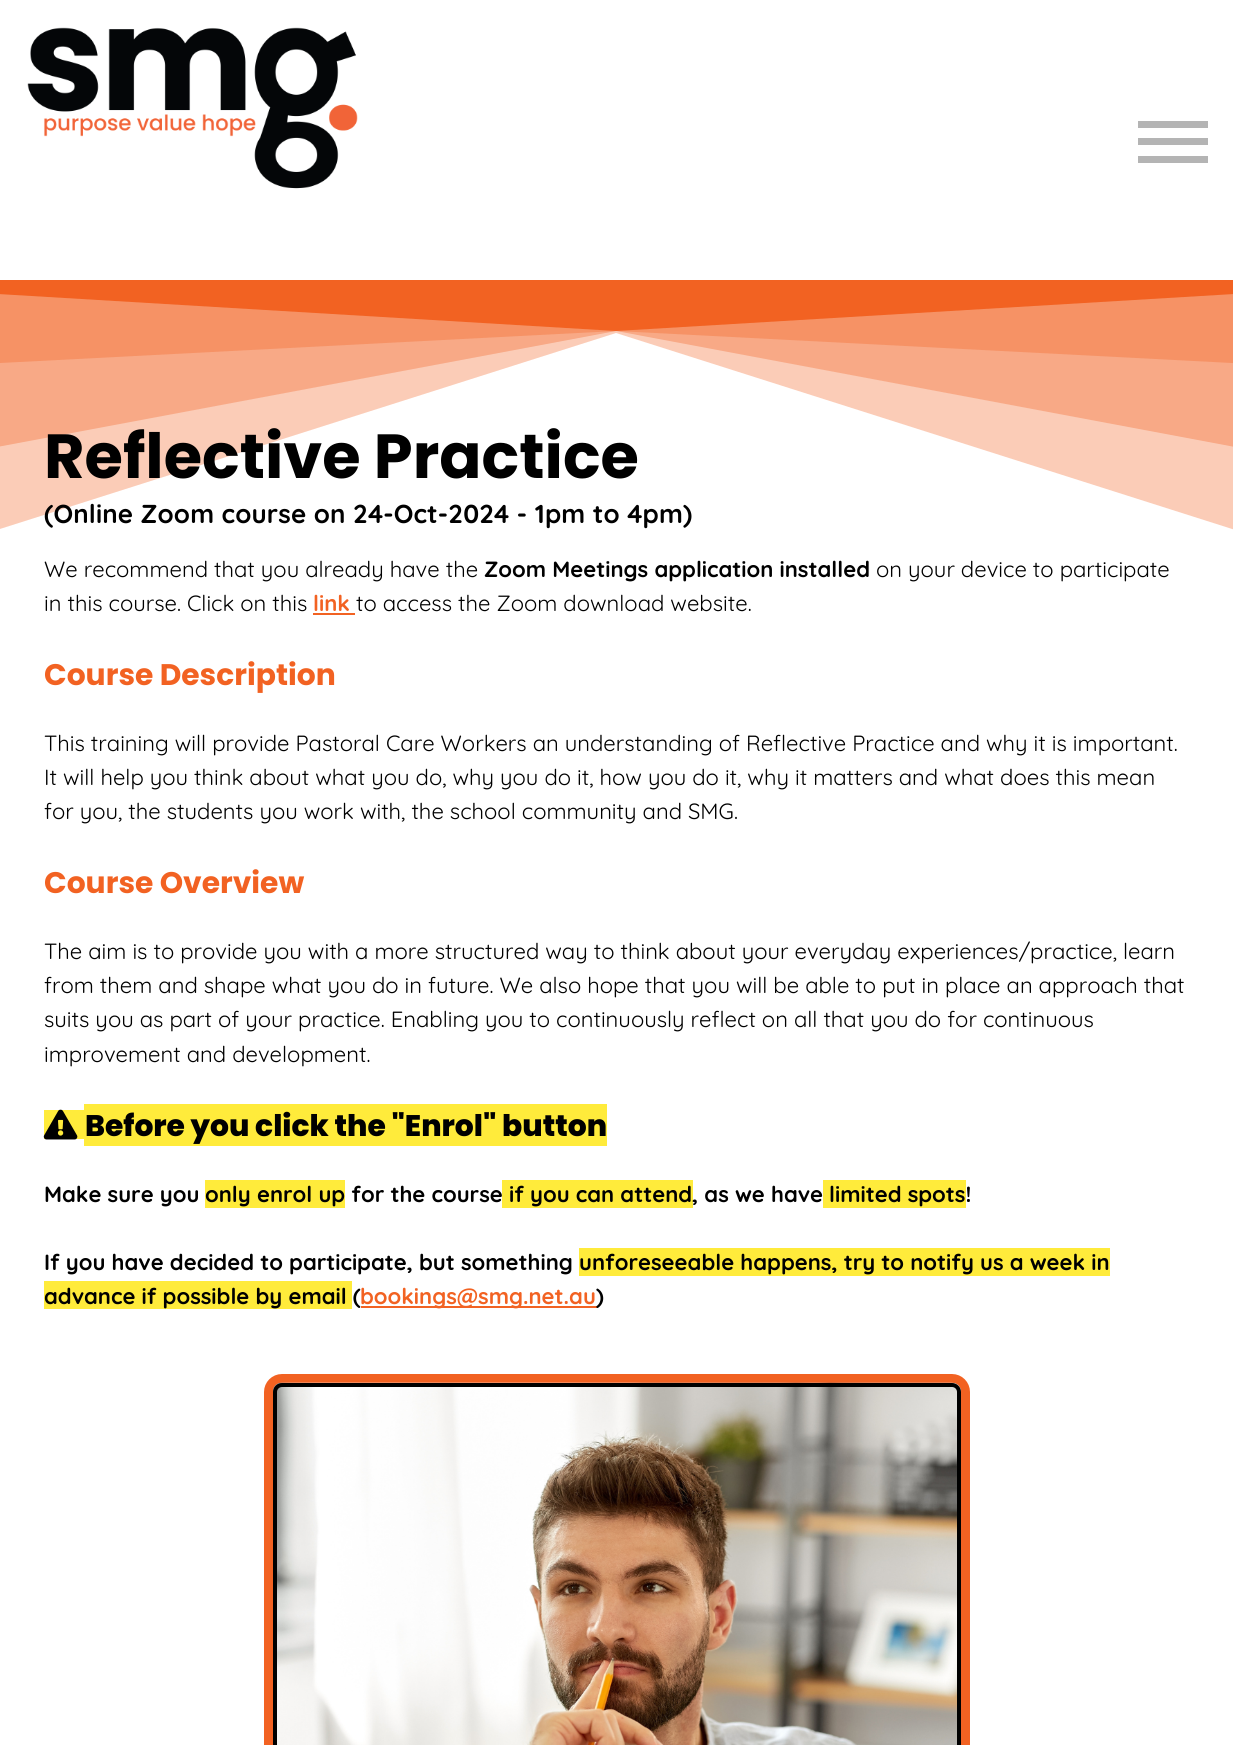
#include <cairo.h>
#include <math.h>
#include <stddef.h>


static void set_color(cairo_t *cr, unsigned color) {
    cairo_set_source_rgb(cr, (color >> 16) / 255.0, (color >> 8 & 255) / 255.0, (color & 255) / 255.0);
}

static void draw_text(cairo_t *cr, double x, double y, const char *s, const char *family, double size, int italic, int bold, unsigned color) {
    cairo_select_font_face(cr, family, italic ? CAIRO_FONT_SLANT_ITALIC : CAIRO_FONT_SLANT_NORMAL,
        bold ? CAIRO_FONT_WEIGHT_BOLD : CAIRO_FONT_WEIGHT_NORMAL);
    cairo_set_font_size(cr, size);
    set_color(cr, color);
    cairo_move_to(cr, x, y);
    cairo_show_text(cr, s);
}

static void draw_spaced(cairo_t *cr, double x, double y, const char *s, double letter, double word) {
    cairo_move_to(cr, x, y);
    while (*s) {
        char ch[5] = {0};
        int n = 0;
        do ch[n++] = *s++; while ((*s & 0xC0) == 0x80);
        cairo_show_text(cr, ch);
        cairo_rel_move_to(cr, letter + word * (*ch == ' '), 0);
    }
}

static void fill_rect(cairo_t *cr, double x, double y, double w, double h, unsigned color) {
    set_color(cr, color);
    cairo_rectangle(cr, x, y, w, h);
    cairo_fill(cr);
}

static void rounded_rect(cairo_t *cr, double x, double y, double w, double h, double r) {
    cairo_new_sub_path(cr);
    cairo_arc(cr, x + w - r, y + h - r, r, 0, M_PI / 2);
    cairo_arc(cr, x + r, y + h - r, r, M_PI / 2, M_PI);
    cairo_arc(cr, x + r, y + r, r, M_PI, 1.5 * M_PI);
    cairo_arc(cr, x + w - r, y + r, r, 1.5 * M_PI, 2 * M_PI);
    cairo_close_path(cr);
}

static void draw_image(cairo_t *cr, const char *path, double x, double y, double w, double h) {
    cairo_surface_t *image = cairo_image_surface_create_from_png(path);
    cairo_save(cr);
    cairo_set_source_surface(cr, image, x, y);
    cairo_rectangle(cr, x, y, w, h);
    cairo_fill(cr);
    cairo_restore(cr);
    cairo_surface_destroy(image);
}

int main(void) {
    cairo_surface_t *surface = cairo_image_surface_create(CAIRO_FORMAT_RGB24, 1233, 1745);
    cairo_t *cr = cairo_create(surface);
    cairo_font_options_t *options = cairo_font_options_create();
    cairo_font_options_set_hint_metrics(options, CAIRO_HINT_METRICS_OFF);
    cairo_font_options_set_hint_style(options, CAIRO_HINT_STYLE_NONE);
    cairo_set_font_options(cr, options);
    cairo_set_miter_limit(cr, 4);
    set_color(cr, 0xFFFFFF);
    cairo_paint(cr);
    draw_image(cr, "assets/img1.png", 27, 27, 331, 162);
    fill_rect(cr, 1138, 156, 70, 7, 0xB4B4B4);
    fill_rect(cr, 1138, 121, 70, 7, 0xB4B4B4);
    fill_rect(cr, 1138, 138, 70, 7, 0xB4B4B4);
    cairo_save(cr);
    cairo_rectangle(cr, 0, 280, 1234, 263);
    cairo_clip(cr);
    set_color(cr, 0xFBCCB7);
    cairo_new_path(cr);
    cairo_move_to(cr, 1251, 276);
    cairo_line_to(cr, 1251, 535);
    cairo_line_to(cr, 616, 333);
    cairo_line_to(cr, -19, 535);
    cairo_line_to(cr, -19, 276);
    cairo_close_path(cr);
    cairo_fill(cr);
    set_color(cr, 0xF8A986);
    cairo_new_path(cr);
    cairo_move_to(cr, 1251, 276);
    cairo_line_to(cr, 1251, 450);
    cairo_line_to(cr, 616, 331);
    cairo_line_to(cr, -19, 450);
    cairo_line_to(cr, -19, 276);
    cairo_close_path(cr);
    cairo_fill(cr);
    set_color(cr, 0xF69265);
    cairo_new_path(cr);
    cairo_move_to(cr, 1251, 276);
    cairo_line_to(cr, 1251, 364);
    cairo_line_to(cr, 616, 331);
    cairo_line_to(cr, -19, 364);
    cairo_line_to(cr, -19, 276);
    cairo_close_path(cr);
    cairo_fill(cr);
    set_color(cr, 0xF26222);
    cairo_new_path(cr);
    cairo_move_to(cr, 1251, 276);
    cairo_line_to(cr, 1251, 293);
    cairo_line_to(cr, 616, 331);
    cairo_line_to(cr, -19, 293);
    cairo_line_to(cr, -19, 276);
    cairo_close_path(cr);
    cairo_fill(cr);
    cairo_restore(cr);
    draw_text(cr, 44, 478, "Reflective Practice", "Poppins", 62.25, 0, 1, 0x000000);
    cairo_select_font_face(cr, "Quicksand", CAIRO_FONT_SLANT_NORMAL, CAIRO_FONT_WEIGHT_BOLD);
    cairo_set_font_size(cr, 25.9);
    draw_spaced(cr, 44, 523, "(Online Zoom course on 24-Oct-2024 - 1pm to 4pm)", 0.15, 0);
    draw_text(cr, 44, 577, "We recommend that you already have the", "Quicksand", 22.02, 0, 0, 0x000000);
    draw_text(cr, 484, 577, "Zoom Meetings application installed", "Quicksand", 22.02, 0, 1, 0x000000);
    draw_text(cr, 876, 577, "on your device to participate", "Quicksand", 22.02, 0, 0, 0x000000);
    draw_text(cr, 44, 611, "in this course. Click on this", "Quicksand", 22.02, 0, 0, 0x000000);
    draw_text(cr, 313, 611, "link", "Quicksand", 22.02, 0, 1, 0xF26222);
    fill_rect(cr, 313, 613, 42, 2, 0xF26222);
    draw_text(cr, 356, 611, "to access the Zoom download website.", "Quicksand", 22.02, 0, 0, 0x000000);
    draw_text(cr, 44, 685, "Course Description", "Poppins", 29.75, 0, 1, 0xF26222);
    draw_text(cr, 44, 751, "This training will provide Pastoral Care Workers an understanding of Reflective Practice and why it is important.", "Quicksand", 22.02, 0, 0, 0x000000);
    draw_text(cr, 44, 785, "It will help you think about what you do, why you do it, how you do it, why it matters and what does this mean", "Quicksand", 22.02, 0, 0, 0x000000);
    draw_text(cr, 44, 819, "for you, the students you work with, the school community and SMG.", "Quicksand", 22.02, 0, 0, 0x000000);
    draw_text(cr, 44, 893, "Course Overview", "Poppins", 29.75, 0, 1, 0xF26222);
    draw_text(cr, 44, 959, "The aim is to provide you with a more structured way to think about your everyday experiences/practice, learn", "Quicksand", 22.02, 0, 0, 0x000000);
    draw_text(cr, 44, 993, "from them and shape what you do in future. We also hope that you will be able to put in place an approach that", "Quicksand", 22.02, 0, 0, 0x000000);
    draw_text(cr, 44, 1027, "suits you as part of your practice. Enabling you to continuously reflect on all that you do for continuous", "Quicksand", 22.02, 0, 0, 0x000000);
    draw_text(cr, 44, 1062, "improvement and development.", "Quicksand", 22.02, 0, 0, 0x000000);
    fill_rect(cr, 44, 1110, 40, 29, 0xFFEB3B);
    fill_rect(cr, 84, 1104, 523, 42, 0xFFEB3B);
    draw_image(cr, "assets/img2.png", 43, 1109, 35, 31);
    draw_text(cr, 85, 1136, "Before you click the \"Enrol\" button", "Poppins ExtraBold", 29.75, 0, 0, 0x000000);
    draw_text(cr, 44, 1202, "Make sure you", "Quicksand", 22.02, 0, 1, 0x000000);
    fill_rect(cr, 205, 1180, 140, 28, 0xFFEB3B);
    draw_text(cr, 205, 1202, "only enrol up for the course", "Quicksand", 22.02, 0, 1, 0x000000);
    fill_rect(cr, 502, 1180, 191, 28, 0xFFEB3B);
    draw_text(cr, 509, 1202, "if you can attend, as we have", "Quicksand", 22.02, 0, 1, 0x000000);
    fill_rect(cr, 823, 1180, 143, 28, 0xFFEB3B);
    draw_text(cr, 829, 1202, "limited spots!", "Quicksand", 22.02, 0, 1, 0x000000);
    draw_text(cr, 44, 1270, "If you have decided to participate, but something", "Quicksand", 22.02, 0, 1, 0x000000);
    fill_rect(cr, 579, 1248, 531, 28, 0xFFEB3B);
    draw_text(cr, 579, 1270, "unforeseeable happens, try to notify us a week in", "Quicksand", 22.02, 0, 1, 0x000000);
    fill_rect(cr, 44, 1281, 308, 28, 0xFFEB3B);
    draw_text(cr, 44, 1304, "advance if possible by email (", "Quicksand", 22.02, 0, 1, 0x000000);
    fill_rect(cr, 361, 1306, 236, 2, 0xF26222);
    draw_text(cr, 360, 1304, "bookings@smg.net.au", "Quicksand", 22.02, 0, 1, 0xF26222);
    draw_text(cr, 596, 1304, ")", "Quicksand", 22.02, 0, 1, 0x000000);
    rounded_rect(cr, 268.5, 1378.5, 697, 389, 13.5);
    set_color(cr, 0xF26222);
    cairo_set_line_width(cr, 9);
    cairo_stroke(cr);
    draw_image(cr, "assets/img3.png", 273, 1382, 688, 363);
    rounded_rect(cr, 275, 1385, 684, 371, 7);
    set_color(cr, 0x000000);
    cairo_set_line_width(cr, 4);
    cairo_stroke(cr);
    cairo_surface_write_to_png(surface, "output.png");
    cairo_font_options_destroy(options);
    cairo_destroy(cr);
    cairo_surface_destroy(surface);
    return 0;
}
